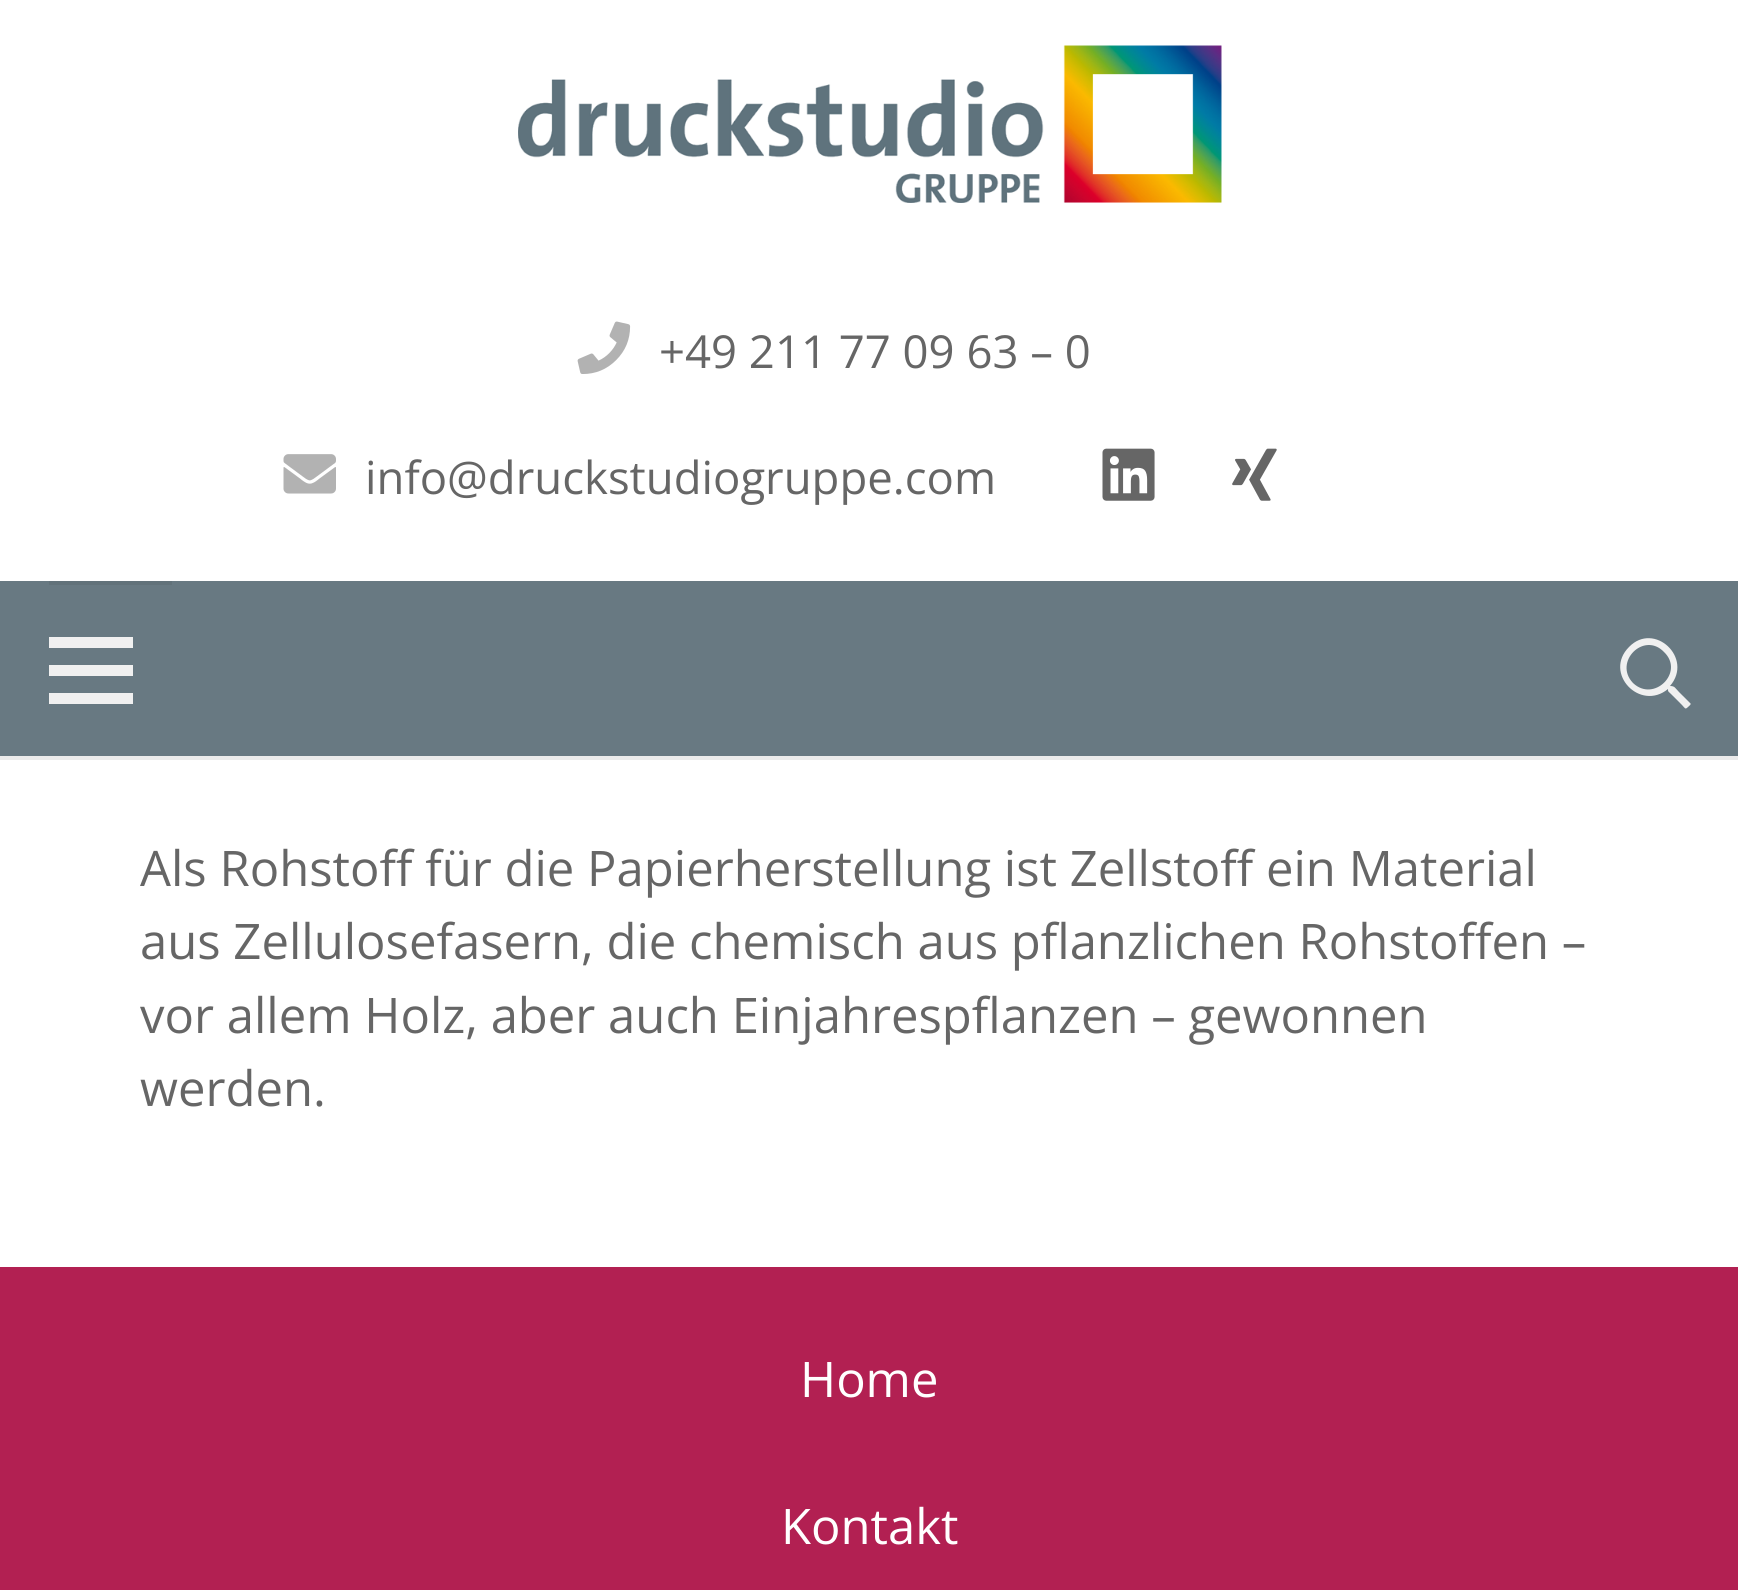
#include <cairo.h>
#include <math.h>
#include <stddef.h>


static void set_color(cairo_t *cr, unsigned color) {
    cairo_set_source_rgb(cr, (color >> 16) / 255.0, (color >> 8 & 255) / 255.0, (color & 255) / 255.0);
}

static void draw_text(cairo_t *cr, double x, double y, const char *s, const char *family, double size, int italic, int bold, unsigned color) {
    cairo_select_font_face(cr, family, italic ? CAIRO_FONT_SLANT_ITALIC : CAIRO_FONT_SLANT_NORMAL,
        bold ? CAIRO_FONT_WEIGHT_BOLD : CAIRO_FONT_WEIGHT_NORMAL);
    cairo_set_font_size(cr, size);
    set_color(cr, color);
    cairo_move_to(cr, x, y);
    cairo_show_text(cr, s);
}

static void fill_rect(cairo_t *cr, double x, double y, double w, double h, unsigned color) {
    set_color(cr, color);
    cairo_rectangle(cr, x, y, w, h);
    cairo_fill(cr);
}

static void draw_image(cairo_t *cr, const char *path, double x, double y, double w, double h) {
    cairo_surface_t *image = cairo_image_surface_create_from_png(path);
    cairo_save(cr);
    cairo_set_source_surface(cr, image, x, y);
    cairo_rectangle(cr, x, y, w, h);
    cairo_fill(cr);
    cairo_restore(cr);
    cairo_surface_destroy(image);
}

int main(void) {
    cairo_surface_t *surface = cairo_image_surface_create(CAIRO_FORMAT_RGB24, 1738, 1590);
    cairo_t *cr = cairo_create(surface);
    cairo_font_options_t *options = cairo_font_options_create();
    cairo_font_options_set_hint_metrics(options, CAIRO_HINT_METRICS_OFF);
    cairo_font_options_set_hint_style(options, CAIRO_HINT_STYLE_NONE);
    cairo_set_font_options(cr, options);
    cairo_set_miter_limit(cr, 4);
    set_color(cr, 0xFFFFFF);
    cairo_paint(cr);
    draw_image(cr, "assets/img1.png", 518, 45, 704, 158);
    draw_image(cr, "assets/img2.png", 577, 321, 54, 53);
    draw_text(cr, 659, 368, "+49 211 77 09 63 – 0", "Open Sans", 45.5, 0, 0, 0x666666);
    draw_image(cr, "assets/img3.png", 283, 454, 53, 40);
    draw_text(cr, 365, 494, "info@druckstudiogruppe.com", "Open Sans", 45.5, 0, 0, 0x666666);
    draw_image(cr, "assets/img4.png", 1102, 448, 53, 53);
    draw_image(cr, "assets/img5.png", 1232, 448, 45, 53);
    set_color(cr, 0xEBEBEB);
    cairo_new_path(cr);
    cairo_move_to(cr, 0, 756);
    cairo_line_to(cr, 0, 760);
    cairo_line_to(cr, 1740, 760);
    cairo_line_to(cr, 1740, 585);
    cairo_line_to(cr, 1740, 756);
    cairo_close_path(cr);
    cairo_fill(cr);
    fill_rect(cr, 0, 581, 1738, 175, 0x687982);
    fill_rect(cr, 49, 581, 123, 4, 0x62727A);
    fill_rect(cr, 49, 665, 84, 11, 0xF0F0F0);
    fill_rect(cr, 49, 637, 84, 11, 0xF0F0F0);
    fill_rect(cr, 49, 693, 84, 11, 0xF0F0F0);
    cairo_new_path(cr);
    cairo_move_to(cr, 1690, 703);
    cairo_curve_to(cr, 1692, 704, 1689, 706, 1688, 707);
    cairo_curve_to(cr, 1685, 710, 1685, 708, 1682, 705);
    cairo_line_to(cr, 1671, 694);
    cairo_curve_to(cr, 1668, 691, 1668, 692, 1668, 689);
    cairo_curve_to(cr, 1640, 712, 1603, 673, 1629, 647);
    cairo_curve_to(cr, 1654, 621, 1694, 658, 1670, 686);
    cairo_curve_to(cr, 1675, 686, 1675, 688, 1679, 692);
    cairo_close_path(cr);
    cairo_move_to(cr, 1633, 683);
    cairo_curve_to(cr, 1654, 703, 1685, 672, 1664, 652);
    cairo_curve_to(cr, 1644, 631, 1613, 662, 1633, 683);
    cairo_close_path(cr);
    cairo_fill(cr);
    draw_text(cr, 140, 886, "Als Rohstoff für die Papierherstellung ist Zellstoff ein Material", "Open Sans", 49, 0, 0, 0x666666);
    draw_text(cr, 140, 959, "aus Zellulosefasern, die chemisch aus pflanzlichen Rohstoffen –", "Open Sans", 49, 0, 0, 0x666666);
    draw_text(cr, 140, 1033, "vor allem Holz, aber auch Einjahrespflanzen – gewonnen", "Open Sans", 49, 0, 0, 0x666666);
    draw_text(cr, 140, 1106, "werden.", "Open Sans", 49, 0, 0, 0x666666);
    fill_rect(cr, 0, 1267, 1738, 323, 0xB22052);
    draw_text(cr, 800, 1397, "Home", "Open Sans", 49, 0, 0, 0xFFFFFF);
    draw_text(cr, 781, 1544, "Kontakt", "Open Sans", 49, 0, 0, 0xFFFFFF);
    cairo_surface_write_to_png(surface, "output.png");
    cairo_font_options_destroy(options);
    cairo_destroy(cr);
    cairo_surface_destroy(surface);
    return 0;
}
